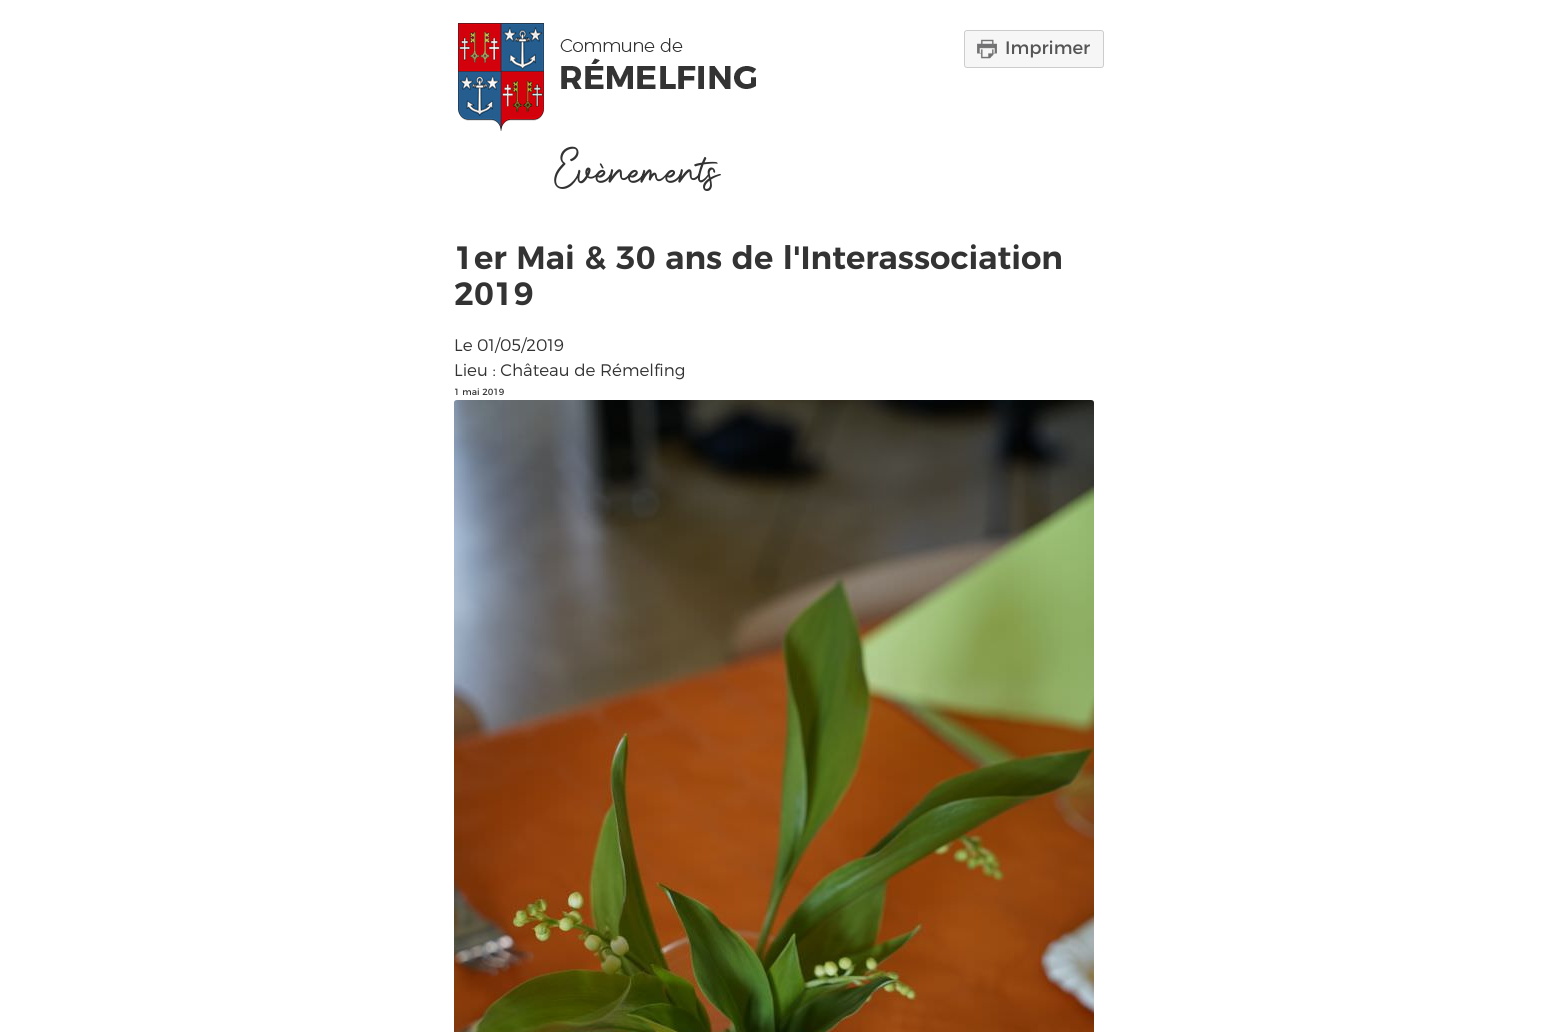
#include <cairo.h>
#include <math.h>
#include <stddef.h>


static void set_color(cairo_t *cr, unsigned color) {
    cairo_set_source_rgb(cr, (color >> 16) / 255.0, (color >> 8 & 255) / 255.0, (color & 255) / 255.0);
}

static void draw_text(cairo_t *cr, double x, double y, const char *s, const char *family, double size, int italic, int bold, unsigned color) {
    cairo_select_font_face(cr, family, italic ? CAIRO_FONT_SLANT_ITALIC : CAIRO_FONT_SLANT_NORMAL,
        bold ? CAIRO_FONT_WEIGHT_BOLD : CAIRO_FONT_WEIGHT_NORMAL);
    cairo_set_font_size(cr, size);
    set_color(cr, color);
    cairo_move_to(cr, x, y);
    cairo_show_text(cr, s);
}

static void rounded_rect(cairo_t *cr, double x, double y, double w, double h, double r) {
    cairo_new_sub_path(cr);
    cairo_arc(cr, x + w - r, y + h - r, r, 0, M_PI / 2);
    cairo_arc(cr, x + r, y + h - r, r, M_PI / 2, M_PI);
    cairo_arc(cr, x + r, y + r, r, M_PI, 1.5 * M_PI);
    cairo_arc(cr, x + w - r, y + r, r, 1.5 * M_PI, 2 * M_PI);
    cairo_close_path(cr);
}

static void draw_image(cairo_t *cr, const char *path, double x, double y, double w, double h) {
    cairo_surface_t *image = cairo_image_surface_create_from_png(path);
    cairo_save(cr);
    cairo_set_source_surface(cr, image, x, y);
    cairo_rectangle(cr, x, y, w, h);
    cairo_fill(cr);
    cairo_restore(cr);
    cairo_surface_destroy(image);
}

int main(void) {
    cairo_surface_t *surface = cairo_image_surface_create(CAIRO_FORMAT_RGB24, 1557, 1032);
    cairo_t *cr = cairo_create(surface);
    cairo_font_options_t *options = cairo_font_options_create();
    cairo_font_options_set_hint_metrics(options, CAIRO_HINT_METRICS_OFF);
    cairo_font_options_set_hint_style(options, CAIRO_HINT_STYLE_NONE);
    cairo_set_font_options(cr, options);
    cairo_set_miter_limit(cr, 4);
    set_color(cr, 0xFFFFFF);
    cairo_paint(cr);
    draw_image(cr, "assets/img1.png", 458, 23, 299, 108);
    set_color(cr, 0xF6F6F6);
    rounded_rect(cr, 964.5, 30.5, 139, 37, 2.5);
    cairo_fill_preserve(cr);
    set_color(cr, 0xCCCCCC);
    cairo_set_line_width(cr, 1);
    cairo_stroke(cr);
    draw_image(cr, "assets/img2.png", 977, 39, 20, 20);
    draw_text(cr, 1005, 54, "Imprimer", "Montserrat", 18, 0, 0, 0x555555);
    draw_text(cr, 554, 182, "Evènements", "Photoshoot", 25.25, 0, 0, 0x333333);
    draw_text(cr, 454, 269, "1er Mai & 30 ans de l'Interassociation", "Montserrat SemiBold", 32.25, 0, 0, 0x333333);
    draw_text(cr, 454, 305, "2019", "Montserrat SemiBold", 32.25, 0, 0, 0x333333);
    draw_text(cr, 454, 351, "Le 01/05/2019", "Montserrat Light", 16.75, 0, 0, 0x333333);
    draw_text(cr, 454, 376, "Lieu : Château de Rémelfing", "Montserrat Light", 16.75, 0, 0, 0x333333);
    draw_text(cr, 454, 395, "1 mai 2019", "Montserrat", 9, 0, 0, 0x333333);
    draw_image(cr, "assets/img3.png", 454, 400, 640, 632);
    cairo_surface_write_to_png(surface, "output.png");
    cairo_font_options_destroy(options);
    cairo_destroy(cr);
    cairo_surface_destroy(surface);
    return 0;
}
